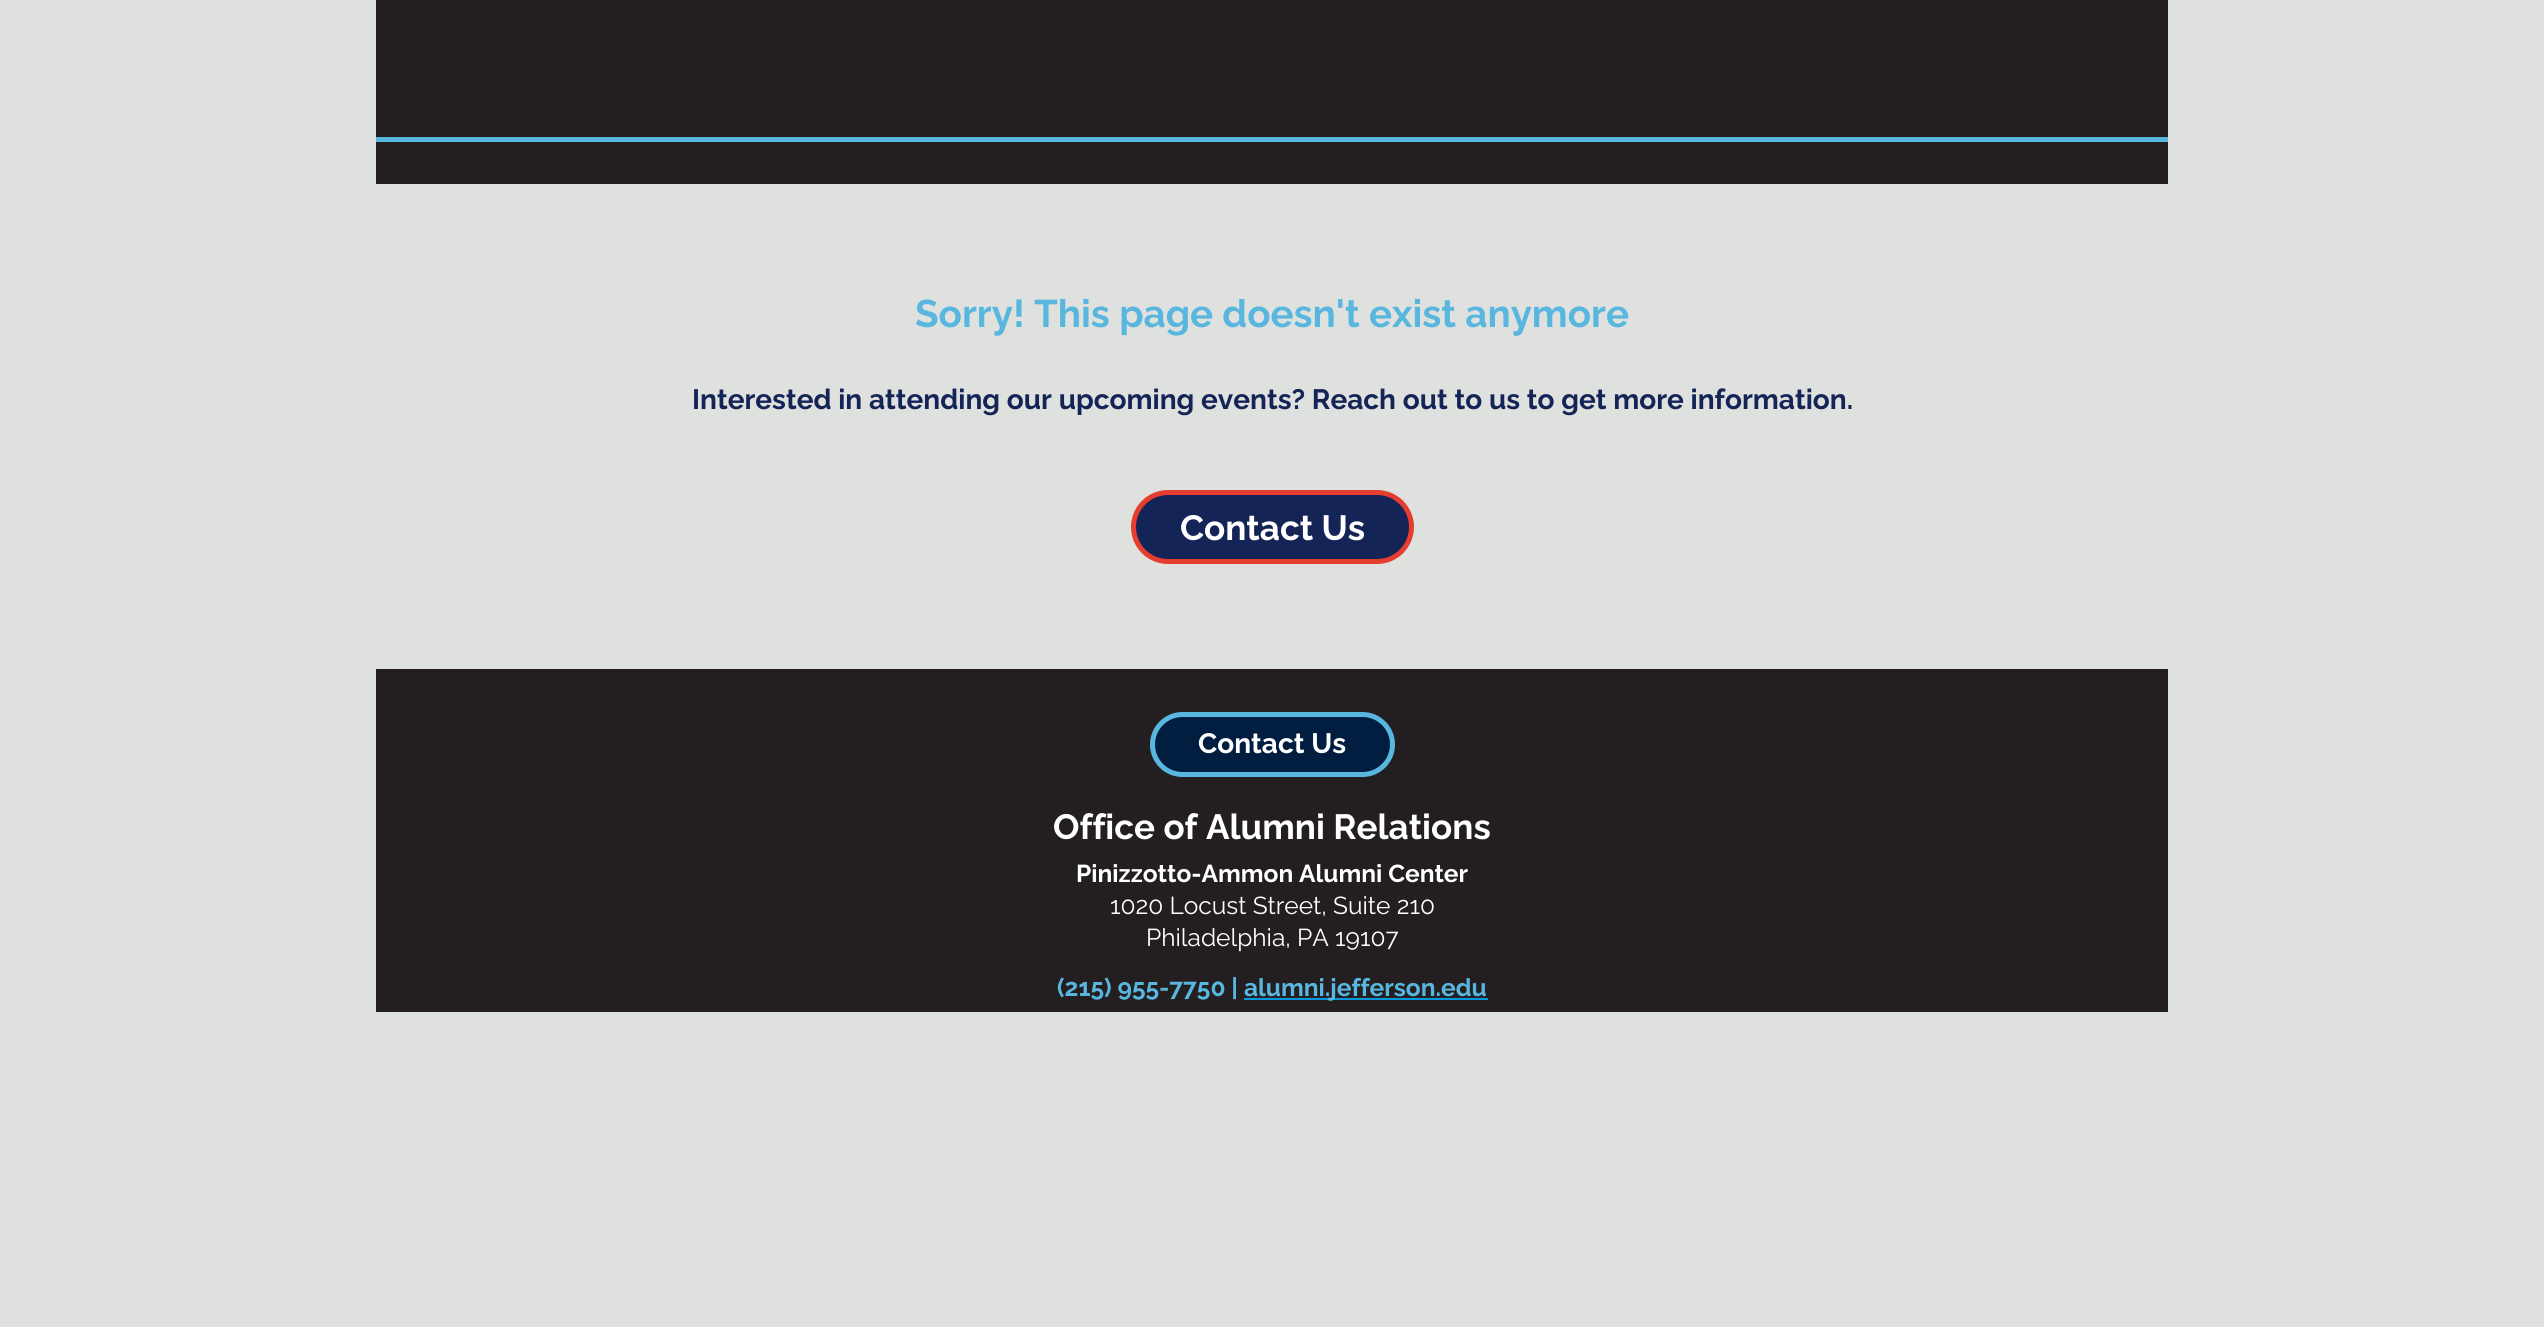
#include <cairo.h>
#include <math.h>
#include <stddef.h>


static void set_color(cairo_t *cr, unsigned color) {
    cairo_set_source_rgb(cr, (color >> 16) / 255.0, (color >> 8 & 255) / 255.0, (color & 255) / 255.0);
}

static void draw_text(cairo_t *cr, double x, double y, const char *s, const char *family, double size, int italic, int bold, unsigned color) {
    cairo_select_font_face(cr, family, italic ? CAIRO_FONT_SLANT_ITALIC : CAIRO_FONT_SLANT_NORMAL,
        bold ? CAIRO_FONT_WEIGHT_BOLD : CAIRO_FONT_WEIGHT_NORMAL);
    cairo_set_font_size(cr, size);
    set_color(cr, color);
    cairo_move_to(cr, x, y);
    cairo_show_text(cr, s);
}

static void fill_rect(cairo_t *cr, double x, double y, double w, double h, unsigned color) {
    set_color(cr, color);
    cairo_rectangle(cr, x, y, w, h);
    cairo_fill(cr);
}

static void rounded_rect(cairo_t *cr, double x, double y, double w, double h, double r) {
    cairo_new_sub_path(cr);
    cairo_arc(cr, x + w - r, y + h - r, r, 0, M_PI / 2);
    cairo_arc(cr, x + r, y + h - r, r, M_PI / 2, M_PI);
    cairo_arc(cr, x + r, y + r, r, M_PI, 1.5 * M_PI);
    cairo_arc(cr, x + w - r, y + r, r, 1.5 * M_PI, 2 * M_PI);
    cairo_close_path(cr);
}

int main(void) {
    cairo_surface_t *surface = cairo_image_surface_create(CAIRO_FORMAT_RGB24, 2544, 1327);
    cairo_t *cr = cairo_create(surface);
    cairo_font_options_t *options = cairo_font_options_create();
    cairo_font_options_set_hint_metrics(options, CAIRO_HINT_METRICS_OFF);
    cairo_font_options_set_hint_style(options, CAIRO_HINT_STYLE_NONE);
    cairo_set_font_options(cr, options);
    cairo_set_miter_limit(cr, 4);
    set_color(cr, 0xDFE1DF);
    cairo_paint(cr);
    fill_rect(cr, 376, 0, 1792, 184, 0x231F20);
    fill_rect(cr, 376, 137, 1792, 5, 0x59B7DF);
    draw_text(cr, 915, 327, "Sorry! This page doesn't exist anymore", "Raleway", 38.5, 0, 1, 0x59B7DF);
    draw_text(cr, 692, 409, "Interested in attending our upcoming events? Reach out to us to get more information.", "Raleway", 28, 0, 1, 0x152456);
    rounded_rect(cr, 1133.5, 492.5, 278, 69, 34.5);
    cairo_fill_preserve(cr);
    set_color(cr, 0xE53E30);
    cairo_set_line_width(cr, 5);
    cairo_stroke(cr);
    draw_text(cr, 1180, 540, "Contact Us", "Raleway", 35, 0, 1, 0xFFFFFF);
    fill_rect(cr, 376, 669, 1792, 343, 0x231F20);
    set_color(cr, 0x011E40);
    rounded_rect(cr, 1152.5, 714.5, 240, 60, 30);
    cairo_fill_preserve(cr);
    set_color(cr, 0x59B7DF);
    cairo_stroke(cr);
    draw_text(cr, 1198, 753, "Contact Us", "Raleway", 28, 0, 1, 0xFFFFFF);
    draw_text(cr, 1053, 839, "Office of Alumni Relations", "Raleway", 35, 0, 1, 0xFFFFFF);
    draw_text(cr, 1076, 882, "Pinizzotto-Ammon Alumni Center", "Raleway", 24.5, 0, 1, 0xFFFFFF);
    draw_text(cr, 1110, 914, "1020 Locust Street, Suite 210", "Raleway", 24.5, 0, 0, 0xFFFFFF);
    draw_text(cr, 1146, 946, "Philadelphia, PA 19107", "Raleway", 24.5, 0, 0, 0xFFFFFF);
    draw_text(cr, 1057, 996, "(215) 955-7750 |", "Raleway", 24.5, 0, 1, 0x59B7DF);
    fill_rect(cr, 1244, 998, 244, 2, 0x0099E0);
    draw_text(cr, 1244, 996, "alumni.jefferson.edu", "Raleway", 24.5, 0, 1, 0x59B7DF);
    cairo_surface_write_to_png(surface, "output.png");
    cairo_font_options_destroy(options);
    cairo_destroy(cr);
    cairo_surface_destroy(surface);
    return 0;
}
